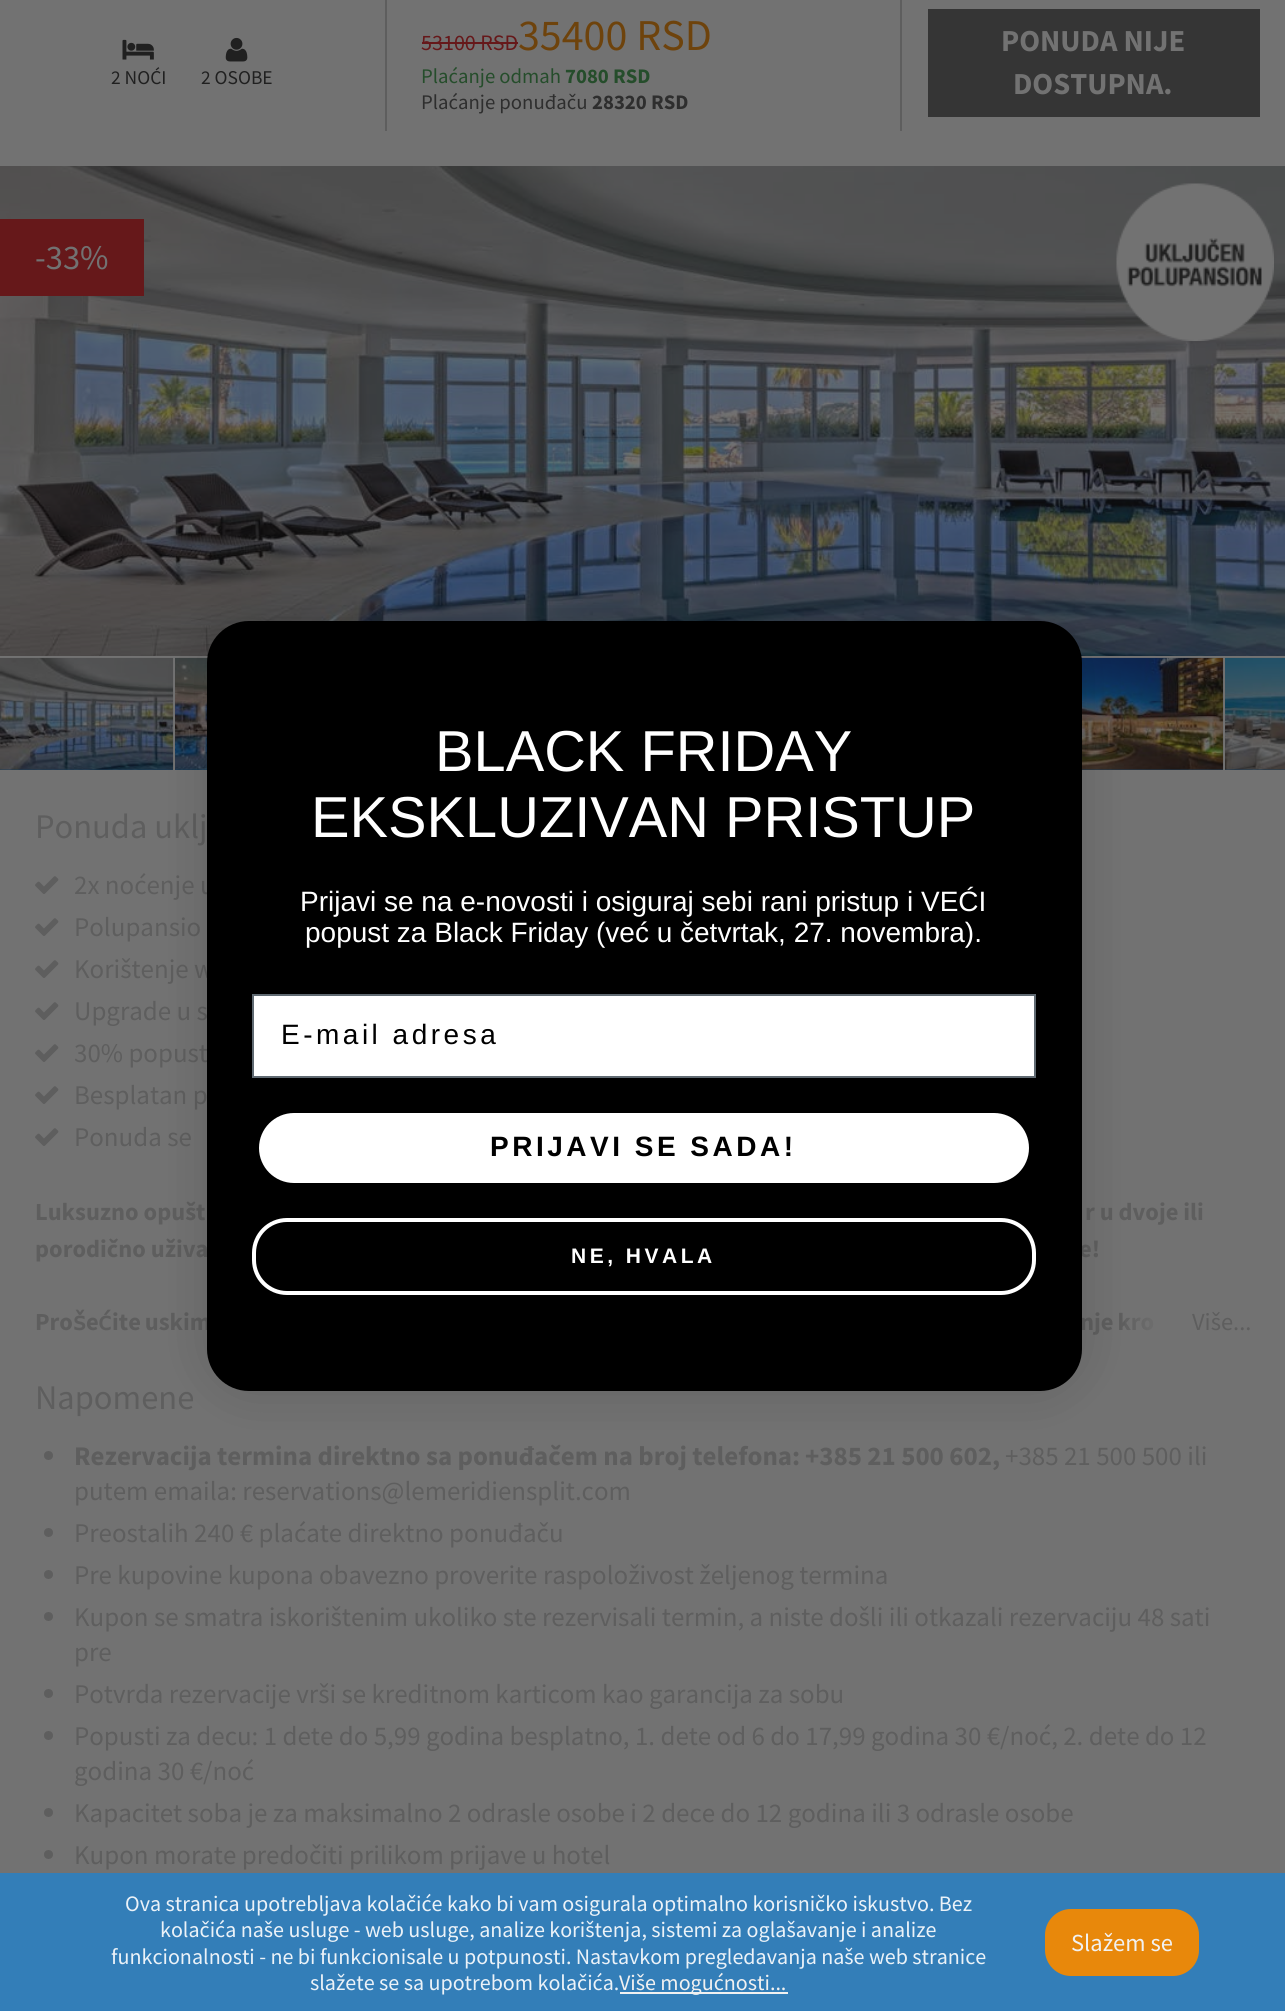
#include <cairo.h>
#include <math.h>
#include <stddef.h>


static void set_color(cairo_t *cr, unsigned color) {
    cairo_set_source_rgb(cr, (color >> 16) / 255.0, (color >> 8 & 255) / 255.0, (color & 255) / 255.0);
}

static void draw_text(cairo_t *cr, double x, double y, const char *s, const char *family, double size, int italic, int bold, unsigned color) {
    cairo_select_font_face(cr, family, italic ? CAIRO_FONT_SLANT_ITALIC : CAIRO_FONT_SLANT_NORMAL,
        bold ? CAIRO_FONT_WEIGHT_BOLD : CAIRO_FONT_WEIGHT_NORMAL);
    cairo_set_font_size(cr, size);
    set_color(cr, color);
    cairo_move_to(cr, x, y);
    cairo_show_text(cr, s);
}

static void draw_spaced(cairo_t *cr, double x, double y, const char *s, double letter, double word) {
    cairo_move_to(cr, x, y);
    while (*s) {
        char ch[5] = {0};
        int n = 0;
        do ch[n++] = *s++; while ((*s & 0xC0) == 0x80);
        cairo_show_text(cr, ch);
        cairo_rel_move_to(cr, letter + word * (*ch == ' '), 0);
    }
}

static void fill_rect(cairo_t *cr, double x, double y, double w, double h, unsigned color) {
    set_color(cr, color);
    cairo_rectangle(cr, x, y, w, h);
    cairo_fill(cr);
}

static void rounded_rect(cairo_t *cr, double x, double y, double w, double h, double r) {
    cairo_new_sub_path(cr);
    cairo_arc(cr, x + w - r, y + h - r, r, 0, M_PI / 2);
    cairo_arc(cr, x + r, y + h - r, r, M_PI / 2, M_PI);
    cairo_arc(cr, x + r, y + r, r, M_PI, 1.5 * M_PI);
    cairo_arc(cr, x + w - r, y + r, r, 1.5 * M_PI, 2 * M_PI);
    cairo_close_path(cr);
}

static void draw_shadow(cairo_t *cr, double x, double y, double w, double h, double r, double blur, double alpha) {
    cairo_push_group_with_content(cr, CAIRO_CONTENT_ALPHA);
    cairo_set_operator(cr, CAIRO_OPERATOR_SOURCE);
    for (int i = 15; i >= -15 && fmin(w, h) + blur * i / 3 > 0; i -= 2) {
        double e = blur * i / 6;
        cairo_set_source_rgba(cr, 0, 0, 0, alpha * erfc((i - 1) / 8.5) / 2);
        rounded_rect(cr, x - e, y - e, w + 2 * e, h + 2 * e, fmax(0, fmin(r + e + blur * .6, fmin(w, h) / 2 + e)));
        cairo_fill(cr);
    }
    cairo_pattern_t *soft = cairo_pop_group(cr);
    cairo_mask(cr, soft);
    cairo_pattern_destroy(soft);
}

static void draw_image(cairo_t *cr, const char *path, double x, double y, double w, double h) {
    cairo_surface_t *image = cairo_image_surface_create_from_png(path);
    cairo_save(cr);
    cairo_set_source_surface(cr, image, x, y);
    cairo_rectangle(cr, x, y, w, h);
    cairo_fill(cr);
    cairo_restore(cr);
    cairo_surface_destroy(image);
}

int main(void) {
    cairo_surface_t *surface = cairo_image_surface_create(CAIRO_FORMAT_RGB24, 1285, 2011);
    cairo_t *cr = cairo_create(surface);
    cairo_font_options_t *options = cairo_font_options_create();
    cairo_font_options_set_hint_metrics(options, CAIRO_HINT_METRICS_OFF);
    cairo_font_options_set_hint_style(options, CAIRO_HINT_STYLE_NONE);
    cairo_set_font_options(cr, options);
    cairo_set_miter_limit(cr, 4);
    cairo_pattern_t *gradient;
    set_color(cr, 0x727272);
    cairo_paint(cr);
    fill_rect(cr, 0, 1873, 1285, 138, 0x337EB8);
    fill_rect(cr, 385, 0, 2, 131, 0x5E5E5E);
    draw_image(cr, "assets/img1.png", 122, 39, 32, 21);
    draw_text(cr, 111, 84, "2 NOĆI", "Source Sans Pro", 19.5, 0, 0, 0x202020);
    draw_image(cr, "assets/img2.png", 225, 37, 23, 25);
    draw_text(cr, 201, 84, "2 OSOBE", "Source Sans Pro", 19.5, 0, 0, 0x202020);
    fill_rect(cr, 900, 0, 2, 131, 0x5E5E5E);
    draw_text(cr, 421, 50, "53100 RSD", "Source Sans Pro", 22.05, 0, 0, 0x66181A);
    fill_rect(cr, 422, 42, 96, 2, 0x66181A);
    draw_text(cr, 518, 50, "35400 RSD", "Source Sans Pro", 44, 0, 0, 0x6E430C);
    draw_text(cr, 421, 83, "Plaćanje odmah", "Source Sans Pro", 20.75, 0, 0, 0x254D2B);
    draw_text(cr, 565, 83, "7080 RSD", "Source Sans Pro", 20.75, 0, 1, 0x254D2B);
    draw_text(cr, 421, 109, "Plaćanje ponuđaču", "Source Sans Pro", 20.75, 0, 0, 0x2E2E2E);
    draw_text(cr, 592, 109, "28320 RSD", "Source Sans Pro", 20.75, 0, 1, 0x2E2E2E);
    fill_rect(cr, 928, 9, 332, 108, 0x353535);
    draw_text(cr, 1001, 51, "PONUDA NIJE", "Source Sans Pro", 30.5, 0, 1, 0x727272);
    draw_text(cr, 1013, 94, "DOSTUPNA.", "Source Sans Pro", 30.5, 0, 1, 0x727272);
    draw_image(cr, "assets/img3.png", 0, 166, 1285, 490);
    fill_rect(cr, 0, 219, 144, 77, 0x66181A);
    draw_text(cr, 35, 269, "-33%", "Source Sans Pro", 34.5, 0, 0, 0x727272);
    draw_image(cr, "assets/img4.png", 1116, 183, 158, 158);
    fill_rect(cr, 0, 769, 1285, 1, 0x1E3F59);
    fill_rect(cr, 173, 769, 2, 1, 0x727272);
    draw_image(cr, "assets/img5.png", 0, 657, 174, 113);
    draw_image(cr, "assets/img6.png", 175, 657, 33, 113);
    fill_rect(cr, 1223, 769, 2, 1, 0x727272);
    draw_image(cr, "assets/img7.png", 1081, 657, 143, 113);
    draw_image(cr, "assets/img8.png", 1225, 657, 60, 113);
    draw_text(cr, 35, 838, "Ponuda uklj", "Source Sans Pro", 34.5, 0, 0, 0x5E5E5E);
    draw_image(cr, "assets/img9.png", 35, 876, 24, 18);
    draw_text(cr, 74, 894, "2x noćenje u", "Source Sans Pro", 26.95, 0, 0, 0x5E5E5E);
    draw_image(cr, "assets/img9.png", 35, 918, 24, 18);
    draw_text(cr, 74, 936, "Polupansio", "Source Sans Pro", 26.95, 0, 0, 0x5E5E5E);
    draw_image(cr, "assets/img9.png", 35, 960, 24, 18);
    draw_text(cr, 74, 978, "Korištenje w", "Source Sans Pro", 26.95, 0, 0, 0x5E5E5E);
    draw_image(cr, "assets/img9.png", 35, 1002, 24, 18);
    draw_text(cr, 74, 1020, "Upgrade u s", "Source Sans Pro", 26.95, 0, 0, 0x5E5E5E);
    draw_image(cr, "assets/img9.png", 35, 1044, 24, 18);
    draw_text(cr, 74, 1062, "30% popust", "Source Sans Pro", 26.95, 0, 0, 0x5E5E5E);
    draw_image(cr, "assets/img9.png", 35, 1086, 24, 18);
    draw_text(cr, 74, 1104, "Besplatan p", "Source Sans Pro", 26.95, 0, 0, 0x5E5E5E);
    draw_image(cr, "assets/img9.png", 35, 1128, 24, 18);
    draw_text(cr, 74, 1146, "Ponuda se", "Source Sans Pro", 26.95, 0, 0, 0x5E5E5E);
    draw_text(cr, 35, 1220, "Luksuzno opušt", "Source Sans Pro", 24.5, 0, 1, 0x5E5E5E);
    draw_text(cr, 1085, 1220, "r u dvoje ili", "Source Sans Pro", 24.5, 0, 1, 0x5E5E5E);
    draw_text(cr, 35, 1257, "porodično uživa", "Source Sans Pro", 24.5, 0, 1, 0x5E5E5E);
    draw_text(cr, 1079, 1257, "e!", "Source Sans Pro", 24.5, 0, 1, 0x5E5E5E);
    draw_text(cr, 35, 1330, "Pro", "Source Sans Pro", 24.5, 0, 1, 0x5E5E5E);
    draw_text(cr, 73, 1330, "š", "DejaVu Sans", 24.5, 0, 1, 0x5E5E5E);
    draw_text(cr, 86, 1330, "e", "Source Sans Pro", 24.5, 0, 1, 0x5E5E5E);
    draw_text(cr, 98, 1330, "ć", "DejaVu Sans", 24.5, 0, 1, 0x5E5E5E);
    cairo_select_font_face(cr, "Source Sans Pro", CAIRO_FONT_SLANT_NORMAL, CAIRO_FONT_WEIGHT_BOLD);
    draw_spaced(cr, 112, 1330, "ite uskim", 0, -1);
    draw_spaced(cr, 1080, 1330, "nje kro", 0, -1);
    gradient = cairo_pattern_create_linear(1118, 1322, 1167, 1322);
    cairo_pattern_add_color_stop_rgba(gradient, 0, 0.447, 0.447, 0.447, 0);
    cairo_pattern_add_color_stop_rgba(gradient, 1, 0.447, 0.447, 0.447, 1);
    cairo_set_source(cr, gradient);
    cairo_pattern_destroy(gradient);
    cairo_rectangle(cr, 1125, 1317, 29, 14);
    cairo_fill(cr);
    draw_text(cr, 1192, 1330, "Više...", "Source Sans Pro", 24.5, 0, 0, 0x5E5E5E);
    draw_text(cr, 35, 1409, "Napomene", "Source Sans Pro", 34.5, 0, 0, 0x5E5E5E);
    cairo_new_path(cr);
    cairo_arc(cr, 48.5, 1455.5, 4.5, 0, 2 * M_PI);
    cairo_fill(cr);
    draw_text(cr, 74, 1465, "Rezervacija termina direktno sa ponuđačem na broj telefona:", "Source Sans Pro", 26.95, 0, 1, 0x5E5E5E);
    draw_text(cr, 805, 1465, "+385 21 500 602,", "Source Sans Pro", 26.95, 0, 1, 0x5E5E5E);
    draw_text(cr, 1005, 1465, "+385 21 500 500 ili", "Source Sans Pro", 26.95, 0, 0, 0x5E5E5E);
    draw_text(cr, 74, 1500, "putem emaila: reservations@lemeridiensplit.com", "Source Sans Pro", 26.95, 0, 0, 0x5E5E5E);
    cairo_new_path(cr);
    cairo_arc(cr, 48.5, 1532.5, 4.5, 0, 2 * M_PI);
    cairo_fill(cr);
    draw_text(cr, 74, 1542, "Preostalih 240 € plaćate direktno ponuđaču", "Source Sans Pro", 26.95, 0, 0, 0x5E5E5E);
    cairo_new_path(cr);
    cairo_arc(cr, 48.5, 1574.5, 4.5, 0, 2 * M_PI);
    cairo_fill(cr);
    draw_text(cr, 74, 1584, "Pre kupovine kupona obavezno proverite raspoloživost željenog termina", "Source Sans Pro", 26.95, 0, 0, 0x5E5E5E);
    cairo_new_path(cr);
    cairo_arc(cr, 48.5, 1616.5, 4.5, 0, 2 * M_PI);
    cairo_fill(cr);
    draw_text(cr, 74, 1626, "Kupon se smatra iskorištenim ukoliko ste rezervisali termin, a niste došli ili otkazali rezervaciju 48 sati", "Source Sans Pro", 26.95, 0, 0, 0x5E5E5E);
    draw_text(cr, 74, 1661, "pre", "Source Sans Pro", 26.95, 0, 0, 0x5E5E5E);
    cairo_new_path(cr);
    cairo_arc(cr, 48.5, 1693.5, 4.5, 0, 2 * M_PI);
    cairo_fill(cr);
    draw_text(cr, 74, 1703, "Potvrda rezervacije vrši se kreditnom karticom kao garancija za sobu", "Source Sans Pro", 26.95, 0, 0, 0x5E5E5E);
    cairo_new_path(cr);
    cairo_arc(cr, 48.5, 1735.5, 4.5, 0, 2 * M_PI);
    cairo_fill(cr);
    draw_text(cr, 74, 1745, "Popusti za decu: 1 dete do 5,99 godina besplatno, 1. dete od 6 do 17,99 godina 30 €/noć, 2. dete do 12", "Source Sans Pro", 26.95, 0, 0, 0x5E5E5E);
    draw_text(cr, 74, 1780, "godina 30 €/noć", "Source Sans Pro", 26.95, 0, 0, 0x5E5E5E);
    cairo_new_path(cr);
    cairo_arc(cr, 48.5, 1812.5, 4.5, 0, 2 * M_PI);
    cairo_fill(cr);
    draw_text(cr, 74, 1822, "Kapacitet soba je za maksimalno 2 odrasle osobe i 2 dece do 12 godina ili 3 odrasle osobe", "Source Sans Pro", 26.95, 0, 0, 0x5E5E5E);
    cairo_new_path(cr);
    cairo_arc(cr, 48.5, 1854.5, 4.5, 0, 2 * M_PI);
    cairo_fill(cr);
    draw_text(cr, 74, 1864, "Kupon morate predočiti prilikom prijave u hotel", "Source Sans Pro", 26.95, 0, 0, 0x5E5E5E);
    draw_text(cr, 125, 1911, "Ova stranica upotrebljava kolačiće kako bi vam osigurala optimalno korisničko iskustvo. Bez", "Source Sans Pro", 22.05, 0, 0, 0xEBF2F8);
    draw_text(cr, 160, 1937, "kolačića naše usluge - web usluge, analize korištenja, sistemi za oglašavanje i analize", "Source Sans Pro", 22.05, 0, 0, 0xEBF2F8);
    draw_text(cr, 111, 1964, "funkcionalnosti - ne bi funkcionisale u potpunosti. Nastavkom pregledavanja naše web stranice", "Source Sans Pro", 22.05, 0, 0, 0xEBF2F8);
    draw_text(cr, 310, 1990, "slažete se sa upotrebom kolačića.", "Source Sans Pro", 22.05, 0, 0, 0xEBF2F8);
    fill_rect(cr, 620, 1992, 168, 2, 0xF1F1F1);
    draw_text(cr, 619, 1990, "Više mogućnosti...", "Source Sans Pro", 22.05, 0, 0, 0xF1F1F1);
    set_color(cr, 0xE8880B);
    rounded_rect(cr, 1045, 1909, 154, 67, 26);
    cairo_fill(cr);
    draw_text(cr, 1071, 1951, "Slažem se", "Source Sans Pro", 24.5, 0, 0, 0xF1F1F1);
    set_color(cr, 0x000000);
    draw_shadow(cr, 207, 621, 875, 770, 42, 26, 0.15);
    set_color(cr, 0x000000);
    rounded_rect(cr, 207, 621, 875, 770, 42);
    cairo_fill(cr);
    draw_text(cr, 435, 771, "BLACK FRIDAY", "Liberation Sans", 57.75, 0, 0, 0xFFFFFF);
    draw_text(cr, 311, 837, "EKSKLUZIVAN PRISTUP", "Liberation Sans", 57.75, 0, 0, 0xFFFFFF);
    draw_text(cr, 300, 911, "Prijavi se na e-novosti i osiguraj sebi rani pristup i VEĆI", "Liberation Sans", 28, 0, 0, 0xFFFFFF);
    draw_text(cr, 305, 942, "popust za Black Friday (već u četvrtak, 27. novembra).", "Liberation Sans", 28, 0, 0, 0xFFFFFF);
    cairo_rectangle(cr, 253, 995, 782, 82);
    cairo_fill_preserve(cr);
    set_color(cr, 0x606A72);
    cairo_stroke(cr);
    set_color(cr, 0x000000);
    draw_spaced(cr, 281, 1044, "E-mail adresa", 3.5, 0);
    set_color(cr, 0xFFFFFF);
    rounded_rect(cr, 259, 1113, 770, 70, 35);
    cairo_fill(cr);
    cairo_select_font_face(cr, "Liberation Sans", CAIRO_FONT_SLANT_NORMAL, CAIRO_FONT_WEIGHT_BOLD);
    set_color(cr, 0x000000);
    draw_spaced(cr, 490, 1156, "PRIJAVI SE SADA!", 3.5, 0);
    rounded_rect(cr, 254, 1220, 780, 73, 33);
    set_color(cr, 0xFFFFFF);
    cairo_set_line_width(cr, 4);
    cairo_stroke(cr);
    cairo_set_font_size(cr, 21);
    draw_spaced(cr, 571, 1263, "NE, HVALA", 3.5, 0);
    cairo_surface_write_to_png(surface, "output.png");
    cairo_font_options_destroy(options);
    cairo_destroy(cr);
    cairo_surface_destroy(surface);
    return 0;
}
